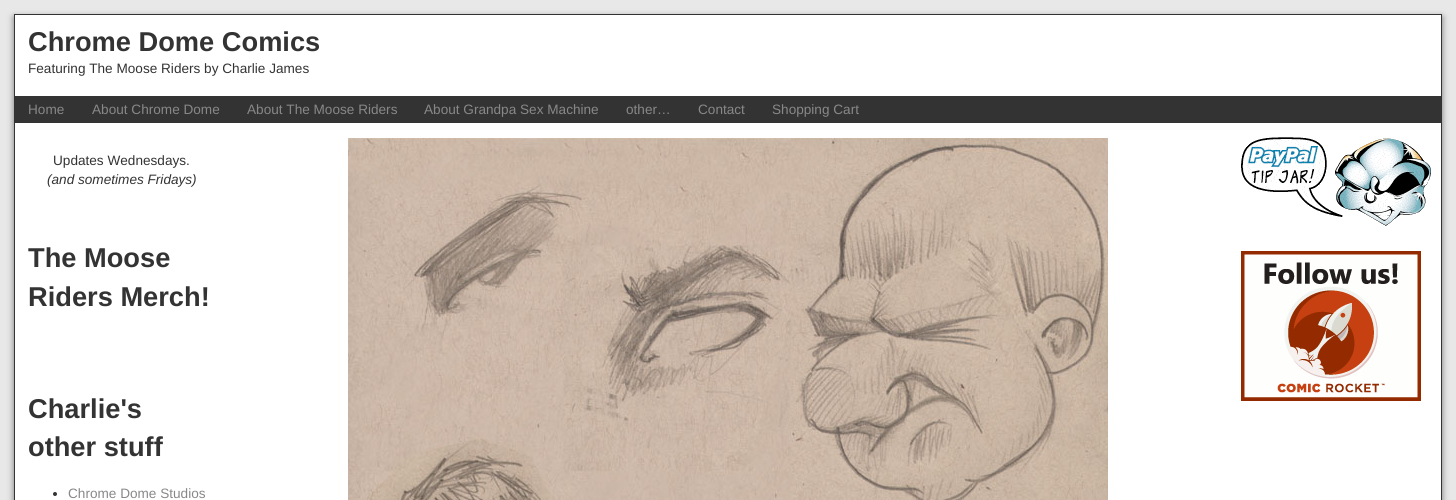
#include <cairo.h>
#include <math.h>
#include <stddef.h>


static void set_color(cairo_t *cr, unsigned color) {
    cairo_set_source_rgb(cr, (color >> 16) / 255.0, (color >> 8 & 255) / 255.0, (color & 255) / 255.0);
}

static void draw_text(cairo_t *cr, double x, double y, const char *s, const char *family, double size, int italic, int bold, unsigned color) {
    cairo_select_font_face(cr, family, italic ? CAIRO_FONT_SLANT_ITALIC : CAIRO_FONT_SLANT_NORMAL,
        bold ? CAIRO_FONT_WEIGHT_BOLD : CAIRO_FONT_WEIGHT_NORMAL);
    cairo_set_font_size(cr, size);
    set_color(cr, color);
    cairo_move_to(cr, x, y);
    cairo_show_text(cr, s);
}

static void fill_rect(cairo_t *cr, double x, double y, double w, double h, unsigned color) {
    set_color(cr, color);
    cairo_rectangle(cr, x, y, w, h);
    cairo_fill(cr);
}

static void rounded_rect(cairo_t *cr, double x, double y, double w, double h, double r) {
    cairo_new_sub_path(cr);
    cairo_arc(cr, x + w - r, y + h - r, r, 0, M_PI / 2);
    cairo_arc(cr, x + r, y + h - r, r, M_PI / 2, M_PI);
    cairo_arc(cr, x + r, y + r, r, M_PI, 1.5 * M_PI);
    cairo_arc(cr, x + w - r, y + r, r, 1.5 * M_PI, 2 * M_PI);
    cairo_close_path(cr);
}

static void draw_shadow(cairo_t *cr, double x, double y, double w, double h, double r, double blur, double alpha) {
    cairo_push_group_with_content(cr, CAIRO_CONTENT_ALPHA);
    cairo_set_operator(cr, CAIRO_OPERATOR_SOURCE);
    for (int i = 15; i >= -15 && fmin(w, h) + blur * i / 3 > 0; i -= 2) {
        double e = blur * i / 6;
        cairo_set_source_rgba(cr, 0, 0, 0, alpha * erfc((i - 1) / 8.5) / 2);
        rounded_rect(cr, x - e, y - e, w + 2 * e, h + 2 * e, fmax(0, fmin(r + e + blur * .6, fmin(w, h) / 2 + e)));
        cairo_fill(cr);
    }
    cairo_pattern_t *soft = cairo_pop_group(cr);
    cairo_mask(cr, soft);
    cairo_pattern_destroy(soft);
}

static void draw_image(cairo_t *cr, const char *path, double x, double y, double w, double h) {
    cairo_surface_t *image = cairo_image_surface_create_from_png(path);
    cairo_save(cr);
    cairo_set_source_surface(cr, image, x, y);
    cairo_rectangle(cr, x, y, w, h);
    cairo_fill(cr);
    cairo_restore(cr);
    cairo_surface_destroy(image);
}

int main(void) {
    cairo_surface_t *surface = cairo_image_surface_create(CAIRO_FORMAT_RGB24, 1456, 500);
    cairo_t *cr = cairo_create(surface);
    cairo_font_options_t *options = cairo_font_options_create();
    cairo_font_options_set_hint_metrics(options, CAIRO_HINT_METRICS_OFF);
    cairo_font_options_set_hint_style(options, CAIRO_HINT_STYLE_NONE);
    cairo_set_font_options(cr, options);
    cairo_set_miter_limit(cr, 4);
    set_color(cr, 0xE8E8E8);
    cairo_paint(cr);
    set_color(cr, 0x000000);
    draw_shadow(cr, 14, 17, 1428, 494, 0, 3.5, 0.5);
    set_color(cr, 0xFFFFFF);
    cairo_rectangle(cr, 14.5, 14.5, 1427, 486);
    cairo_fill_preserve(cr);
    set_color(cr, 0x333333);
    cairo_set_line_width(cr, 1);
    cairo_stroke(cr);
    draw_text(cr, 28, 51, "Chrome Dome Comics", "Liberation Sans", 27.25, 0, 1, 0x333333);
    draw_text(cr, 28, 73, "Featuring The Moose Riders by Charlie James", "Liberation Sans", 13.6, 0, 0, 0x333333);
    fill_rect(cr, 15, 96, 1426, 27, 0x333333);
    draw_text(cr, 28, 114, "Home", "Liberation Sans", 13.6, 0, 0, 0x888888);
    draw_text(cr, 92, 114, "About Chrome Dome", "Liberation Sans", 13.6, 0, 0, 0x888888);
    draw_text(cr, 247, 114, "About The Moose Riders", "Liberation Sans", 13.6, 0, 0, 0x888888);
    draw_text(cr, 424, 114, "About Grandpa Sex Machine", "Liberation Sans", 13.6, 0, 0, 0x888888);
    draw_text(cr, 626, 114, "other…", "Liberation Sans", 13.6, 0, 0, 0x888888);
    draw_text(cr, 698, 114, "Contact", "Liberation Sans", 13.6, 0, 0, 0x888888);
    draw_text(cr, 772, 114, "Shopping Cart", "Liberation Sans", 13.6, 0, 0, 0x888888);
    draw_text(cr, 53, 165, "Updates Wednesdays.", "Liberation Sans", 13.6, 0, 0, 0x333333);
    draw_text(cr, 47, 184, "(and sometimes Fridays)", "Liberation Sans", 13.6, 1, 0, 0x333333);
    draw_text(cr, 28, 267, "The Moose", "Liberation Sans", 27.25, 0, 1, 0x333333);
    draw_text(cr, 28, 306, "Riders Merch!", "Liberation Sans", 27.25, 0, 1, 0x333333);
    draw_text(cr, 28, 418, "Charlie's", "Liberation Sans", 27.25, 0, 1, 0x333333);
    draw_text(cr, 28, 456, "other stuff", "Liberation Sans", 27.25, 0, 1, 0x333333);
    cairo_new_path(cr);
    cairo_arc(cr, 55, 494, 2, 0, 2 * M_PI);
    cairo_fill(cr);
    draw_text(cr, 68, 498, "Chrome Dome Studios", "Liberation Sans", 13.6, 0, 0, 0x888888);
    draw_image(cr, "assets/img1.png", 348, 138, 760, 362);
    draw_image(cr, "assets/img2.png", 1241, 137, 190, 89);
    draw_image(cr, "assets/img3.png", 1241, 251, 180, 150);
    cairo_surface_write_to_png(surface, "output.png");
    cairo_font_options_destroy(options);
    cairo_destroy(cr);
    cairo_surface_destroy(surface);
    return 0;
}
